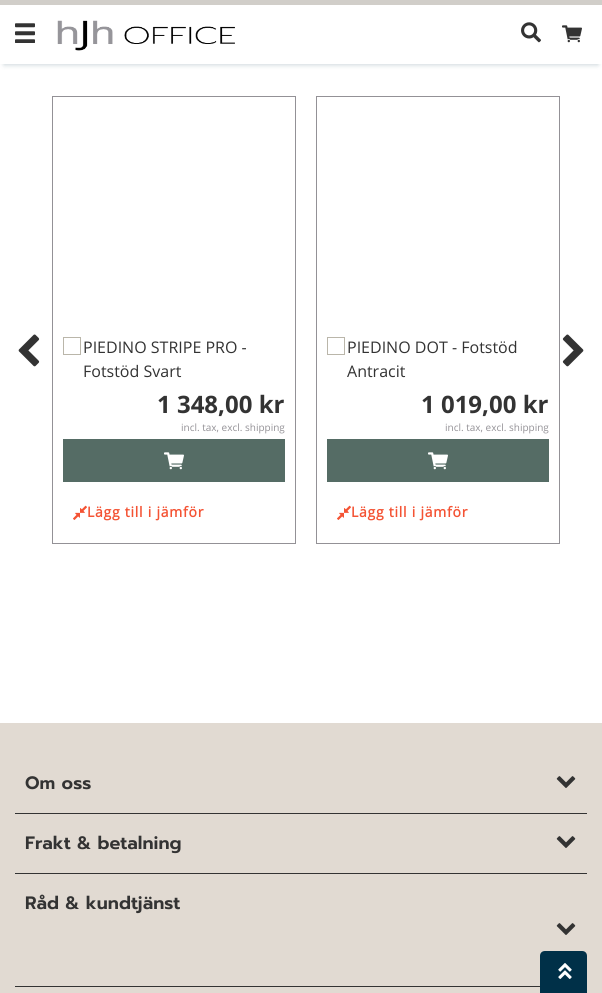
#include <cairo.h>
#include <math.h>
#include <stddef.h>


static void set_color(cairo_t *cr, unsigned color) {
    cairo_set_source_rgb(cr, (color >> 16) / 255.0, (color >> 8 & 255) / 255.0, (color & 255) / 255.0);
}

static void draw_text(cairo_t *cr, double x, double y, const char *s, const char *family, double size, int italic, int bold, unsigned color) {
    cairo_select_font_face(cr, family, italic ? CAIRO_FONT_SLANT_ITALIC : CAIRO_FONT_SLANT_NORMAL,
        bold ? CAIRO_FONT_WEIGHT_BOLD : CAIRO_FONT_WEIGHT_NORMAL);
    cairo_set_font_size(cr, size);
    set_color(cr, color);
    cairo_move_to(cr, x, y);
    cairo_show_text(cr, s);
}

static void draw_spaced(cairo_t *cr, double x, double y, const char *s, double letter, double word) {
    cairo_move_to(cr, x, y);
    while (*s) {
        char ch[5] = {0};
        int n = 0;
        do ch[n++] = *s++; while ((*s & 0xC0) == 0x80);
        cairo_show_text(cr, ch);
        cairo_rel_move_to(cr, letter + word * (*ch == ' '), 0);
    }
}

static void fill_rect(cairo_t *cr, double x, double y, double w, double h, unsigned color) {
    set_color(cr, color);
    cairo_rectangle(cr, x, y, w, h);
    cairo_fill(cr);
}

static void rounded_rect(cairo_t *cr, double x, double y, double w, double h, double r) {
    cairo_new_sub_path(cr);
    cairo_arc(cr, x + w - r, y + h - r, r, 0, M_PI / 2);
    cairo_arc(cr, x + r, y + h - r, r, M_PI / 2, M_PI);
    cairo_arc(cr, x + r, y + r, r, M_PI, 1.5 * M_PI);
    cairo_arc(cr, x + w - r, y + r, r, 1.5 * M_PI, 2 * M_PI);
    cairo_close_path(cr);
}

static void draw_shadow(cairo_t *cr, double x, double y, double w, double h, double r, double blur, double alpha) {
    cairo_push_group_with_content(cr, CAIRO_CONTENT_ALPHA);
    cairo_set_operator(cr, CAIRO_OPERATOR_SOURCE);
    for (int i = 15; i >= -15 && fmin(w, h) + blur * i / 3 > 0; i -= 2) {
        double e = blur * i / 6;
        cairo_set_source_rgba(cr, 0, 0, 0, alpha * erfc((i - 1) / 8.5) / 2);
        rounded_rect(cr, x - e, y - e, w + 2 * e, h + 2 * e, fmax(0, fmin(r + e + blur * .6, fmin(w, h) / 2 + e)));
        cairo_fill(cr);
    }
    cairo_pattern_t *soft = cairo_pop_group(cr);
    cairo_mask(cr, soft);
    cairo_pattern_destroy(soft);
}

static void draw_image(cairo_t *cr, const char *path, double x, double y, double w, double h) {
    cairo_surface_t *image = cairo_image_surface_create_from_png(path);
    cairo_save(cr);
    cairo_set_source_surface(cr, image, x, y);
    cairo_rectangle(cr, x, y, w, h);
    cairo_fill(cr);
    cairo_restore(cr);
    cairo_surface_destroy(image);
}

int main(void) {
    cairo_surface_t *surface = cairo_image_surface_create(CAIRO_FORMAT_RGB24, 602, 993);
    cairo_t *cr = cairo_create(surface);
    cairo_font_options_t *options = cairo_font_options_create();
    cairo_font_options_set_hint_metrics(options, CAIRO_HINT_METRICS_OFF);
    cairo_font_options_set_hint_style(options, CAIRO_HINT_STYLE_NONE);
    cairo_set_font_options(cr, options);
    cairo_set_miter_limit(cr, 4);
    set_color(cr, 0xFFFFFF);
    cairo_paint(cr);
    set_color(cr, 0x003048);
    draw_shadow(cr, 4, 9, 594, 56, 0, 2.5, 0.2);
    fill_rect(cr, 0, 5, 602, 59, 0xFFFFFF);
    fill_rect(cr, 0, 0, 602, 5, 0xD1CEC9);
    draw_image(cr, "assets/img1.png", 15, 23, 20, 20);
    draw_image(cr, "assets/img2.png", 57, 20, 178, 31);
    draw_image(cr, "assets/img3.png", 521, 22, 20, 21);
    draw_image(cr, "assets/img4.png", 562, 25, 20, 18);
    draw_image(cr, "assets/img5.png", 18, 334, 22, 33);
    cairo_rectangle(cr, 52.5, 96.5, 243, 447);
    set_color(cr, 0x939196);
    cairo_set_line_width(cr, 1);
    cairo_stroke(cr);
    cairo_rectangle(cr, 63.5, 337.5, 17, 17);
    set_color(cr, 0xBAB6AA);
    cairo_stroke(cr);
    draw_text(cr, 83, 353, "PIEDINO STRIPE PRO -", "Open Sans", 16, 0, 0, 0x333333);
    draw_text(cr, 83, 377, "Fotstöd Svart", "Open Sans", 16, 0, 0, 0x333333);
    draw_text(cr, 157, 413, "1 348,00 kr", "Open Sans", 24, 0, 1, 0x333333);
    draw_text(cr, 181, 431, "incl. tax, excl. shipping", "Open Sans", 10, 0, 0, 0x939196);
    fill_rect(cr, 63, 439, 222, 43, 0x556C65);
    draw_image(cr, "assets/img6.png", 164, 452, 20, 18);
    draw_image(cr, "assets/img7.png", 73, 505, 14, 15);
    cairo_select_font_face(cr, "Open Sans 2", CAIRO_FONT_SLANT_NORMAL, CAIRO_FONT_WEIGHT_BOLD);
    cairo_set_font_size(cr, 14);
    set_color(cr, 0xF45334);
    draw_spaced(cr, 87, 517, "Lägg till i jämför", 0.75, 0);
    cairo_rectangle(cr, 316.5, 96.5, 243, 447);
    set_color(cr, 0x939196);
    cairo_stroke(cr);
    cairo_rectangle(cr, 327.5, 337.5, 17, 17);
    set_color(cr, 0xBAB6AA);
    cairo_stroke(cr);
    draw_text(cr, 347, 353, "PIEDINO DOT - Fotstöd", "Open Sans", 16, 0, 0, 0x333333);
    draw_text(cr, 347, 377, "Antracit", "Open Sans", 16, 0, 0, 0x333333);
    draw_text(cr, 421, 413, "1 019,00 kr", "Open Sans", 24, 0, 1, 0x333333);
    draw_text(cr, 445, 431, "incl. tax, excl. shipping", "Open Sans", 10, 0, 0, 0x939196);
    fill_rect(cr, 327, 439, 222, 43, 0x556C65);
    draw_image(cr, "assets/img6.png", 428, 452, 20, 18);
    draw_image(cr, "assets/img7.png", 337, 505, 14, 15);
    cairo_select_font_face(cr, "Open Sans 2", CAIRO_FONT_SLANT_NORMAL, CAIRO_FONT_WEIGHT_BOLD);
    cairo_set_font_size(cr, 14);
    set_color(cr, 0xF45334);
    draw_spaced(cr, 351, 517, "Lägg till i jämför", 0.75, 0);
    draw_image(cr, "assets/img8.png", 562, 334, 22, 33);
    fill_rect(cr, 0, 723, 602, 270, 0xE1DAD2);
    fill_rect(cr, 15, 813, 572, 1, 0x333333);
    draw_text(cr, 25, 789, "Om oss", "Prompt SemiBold", 18, 0, 0, 0x333333);
    draw_image(cr, "assets/img9.png", 556, 776, 20, 12);
    fill_rect(cr, 15, 873, 572, 1, 0x333333);
    draw_text(cr, 25, 849, "Frakt & betalning", "Prompt SemiBold", 18, 0, 0, 0x333333);
    draw_image(cr, "assets/img9.png", 556, 836, 20, 12);
    fill_rect(cr, 15, 986, 525, 1, 0x333333);
    draw_text(cr, 25, 909, "Råd & kundtjänst", "Prompt SemiBold", 18, 0, 0, 0x333333);
    draw_image(cr, "assets/img9.png", 556, 923, 20, 12);
    set_color(cr, 0x003048);
    cairo_new_path(cr);
    cairo_move_to(cr, 545, 951);
    cairo_line_to(cr, 582, 951);
    cairo_curve_to(cr, 585, 951, 587, 953, 587, 956);
    cairo_line_to(cr, 587, 993);
    cairo_line_to(cr, 540, 993);
    cairo_line_to(cr, 540, 956);
    cairo_curve_to(cr, 540, 953, 542, 951, 545, 951);
    cairo_close_path(cr);
    cairo_fill(cr);
    draw_image(cr, "assets/img10.png", 558, 963, 14, 16);
    cairo_surface_write_to_png(surface, "output.png");
    cairo_font_options_destroy(options);
    cairo_destroy(cr);
    cairo_surface_destroy(surface);
    return 0;
}
